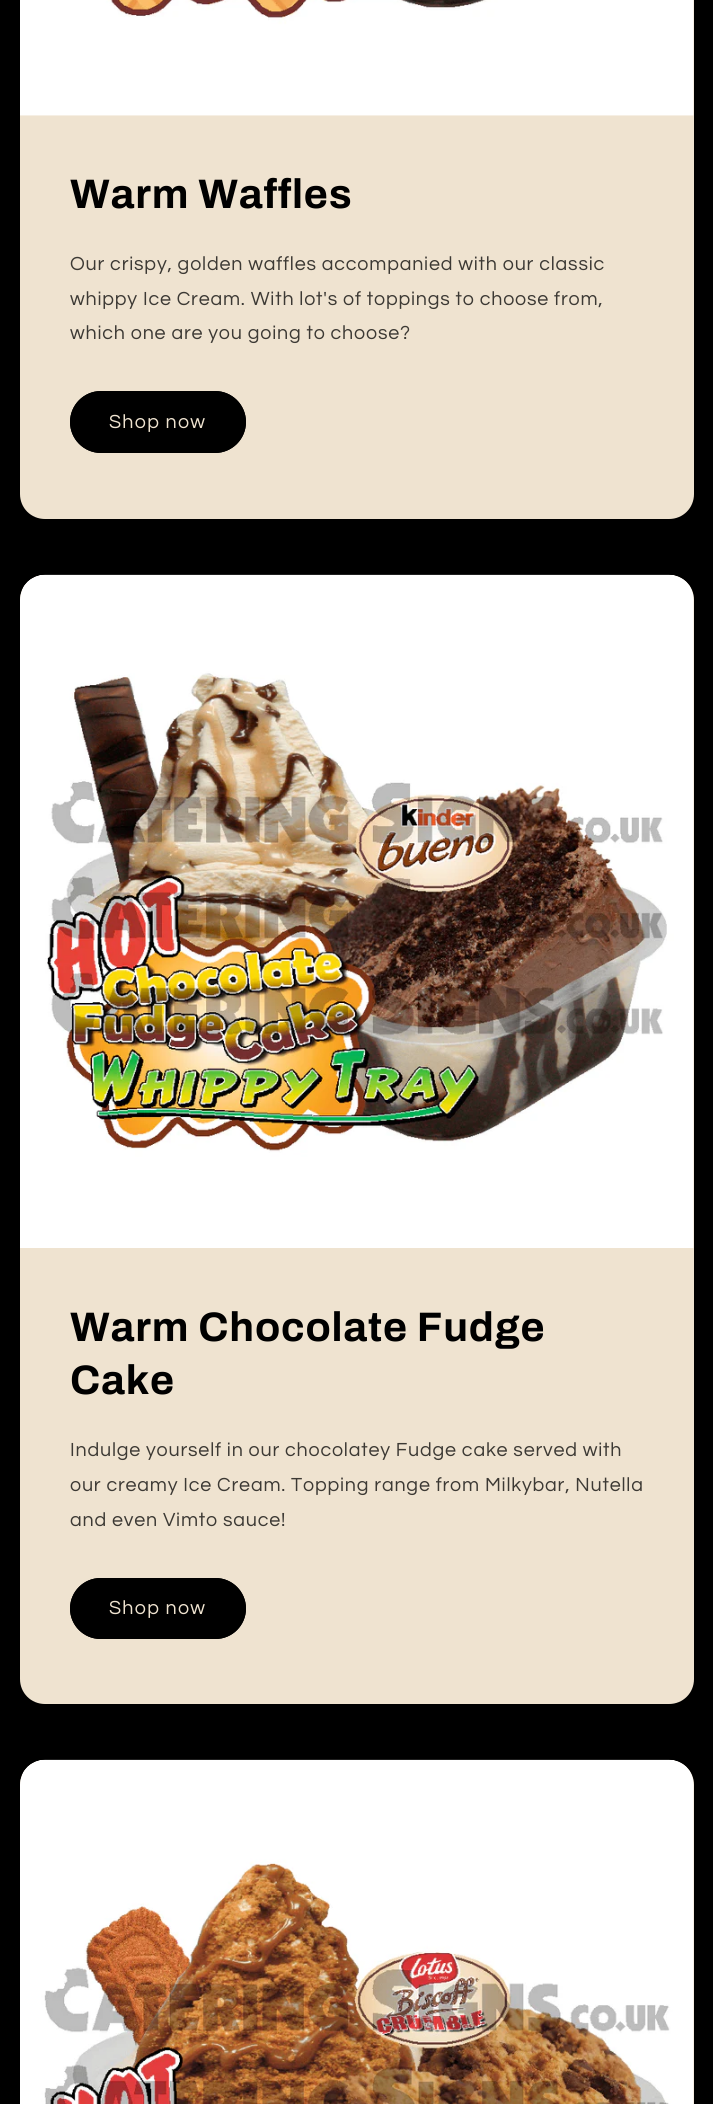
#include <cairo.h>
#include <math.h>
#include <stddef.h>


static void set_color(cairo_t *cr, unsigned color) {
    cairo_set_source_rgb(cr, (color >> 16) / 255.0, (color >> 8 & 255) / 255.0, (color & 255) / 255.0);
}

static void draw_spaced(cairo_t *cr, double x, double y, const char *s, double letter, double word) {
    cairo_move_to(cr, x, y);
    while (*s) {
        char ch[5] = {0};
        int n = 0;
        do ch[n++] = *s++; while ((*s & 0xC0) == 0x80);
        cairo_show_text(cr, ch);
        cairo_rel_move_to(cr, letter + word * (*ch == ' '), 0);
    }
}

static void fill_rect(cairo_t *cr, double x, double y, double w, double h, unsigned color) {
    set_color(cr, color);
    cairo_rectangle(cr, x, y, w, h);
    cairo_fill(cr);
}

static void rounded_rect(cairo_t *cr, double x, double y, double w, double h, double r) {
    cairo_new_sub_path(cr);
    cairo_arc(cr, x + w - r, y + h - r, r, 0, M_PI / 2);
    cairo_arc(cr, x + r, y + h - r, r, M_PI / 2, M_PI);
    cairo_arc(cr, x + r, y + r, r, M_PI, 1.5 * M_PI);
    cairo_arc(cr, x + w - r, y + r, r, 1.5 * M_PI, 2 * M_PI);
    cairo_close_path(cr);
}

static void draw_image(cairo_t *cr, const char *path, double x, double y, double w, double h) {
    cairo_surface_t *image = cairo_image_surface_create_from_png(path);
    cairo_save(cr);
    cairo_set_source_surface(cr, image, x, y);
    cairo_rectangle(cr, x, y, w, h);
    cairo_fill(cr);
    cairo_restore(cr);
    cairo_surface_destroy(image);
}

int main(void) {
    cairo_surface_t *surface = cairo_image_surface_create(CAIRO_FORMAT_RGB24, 713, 2104);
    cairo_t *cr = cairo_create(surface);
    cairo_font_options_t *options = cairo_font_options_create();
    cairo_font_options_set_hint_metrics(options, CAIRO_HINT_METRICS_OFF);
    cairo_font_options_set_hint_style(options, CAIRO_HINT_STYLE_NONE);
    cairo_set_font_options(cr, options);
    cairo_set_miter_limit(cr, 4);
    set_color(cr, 0x000000);
    cairo_paint(cr);
    fill_rect(cr, 20, 0, 674, 116, 0xEFE3D0);
    draw_image(cr, "assets/img1.png", 20, 0, 674, 116);
    cairo_new_path(cr);
    cairo_move_to(cr, 20, 116);
    cairo_line_to(cr, 694, 116);
    cairo_line_to(cr, 694, 494);
    cairo_curve_to(cr, 694, 508, 683, 519, 669, 519);
    cairo_line_to(cr, 45, 519);
    cairo_curve_to(cr, 31, 519, 20, 508, 20, 494);
    cairo_close_path(cr);
    cairo_fill(cr);
    cairo_select_font_face(cr, "Archivo", CAIRO_FONT_SLANT_NORMAL, CAIRO_FONT_WEIGHT_BOLD);
    cairo_set_font_size(cr, 41.25);
    set_color(cr, 0x000000);
    draw_spaced(cr, 70, 208, "Warm Waffles", 0.8, 0);
    cairo_select_font_face(cr, "Questrial", CAIRO_FONT_SLANT_NORMAL, CAIRO_FONT_WEIGHT_NORMAL);
    cairo_set_font_size(cr, 19.7);
    set_color(cr, 0x3C3934);
    draw_spaced(cr, 70, 270, "Our crispy, golden waffles accompanied with our classic", 0.8, 0);
    draw_spaced(cr, 70, 305, "whippy Ice Cream. With lot's of toppings to choose from,", 0.8, 0);
    draw_spaced(cr, 70, 339, "which one are you going to choose?", 0.8, 0);
    set_color(cr, 0x000000);
    rounded_rect(cr, 70, 391, 176, 62, 31);
    cairo_fill(cr);
    rounded_rect(cr, 70.5, 391.5, 175, 61, 30.5);
    cairo_set_line_width(cr, 1);
    cairo_stroke(cr);
    set_color(cr, 0xEFE3D0);
    draw_spaced(cr, 109, 428, "Shop now", 1.25, 0);
    cairo_new_path(cr);
    cairo_move_to(cr, 45, 575);
    cairo_line_to(cr, 669, 575);
    cairo_curve_to(cr, 683, 575, 694, 586, 694, 600);
    cairo_line_to(cr, 694, 1249);
    cairo_line_to(cr, 20, 1249);
    cairo_line_to(cr, 20, 600);
    cairo_curve_to(cr, 20, 586, 31, 575, 45, 575);
    cairo_close_path(cr);
    cairo_fill(cr);
    draw_image(cr, "assets/img2.png", 20, 574, 674, 674);
    cairo_new_path(cr);
    cairo_move_to(cr, 20, 1249);
    cairo_line_to(cr, 694, 1249);
    cairo_line_to(cr, 694, 1679);
    cairo_curve_to(cr, 694, 1693, 683, 1704, 669, 1704);
    cairo_line_to(cr, 45, 1704);
    cairo_curve_to(cr, 31, 1704, 20, 1693, 20, 1679);
    cairo_close_path(cr);
    cairo_fill(cr);
    cairo_select_font_face(cr, "Archivo", CAIRO_FONT_SLANT_NORMAL, CAIRO_FONT_WEIGHT_BOLD);
    cairo_set_font_size(cr, 41.25);
    set_color(cr, 0x000000);
    draw_spaced(cr, 70, 1341, "Warm Chocolate Fudge", 0.8, 0);
    draw_spaced(cr, 70, 1394, "Cake", 0.8, 0);
    cairo_select_font_face(cr, "Questrial", CAIRO_FONT_SLANT_NORMAL, CAIRO_FONT_WEIGHT_NORMAL);
    cairo_set_font_size(cr, 19.7);
    set_color(cr, 0x3C3934);
    draw_spaced(cr, 70, 1456, "Indulge yourself in our chocolatey Fudge cake served with", 0.8, 0);
    draw_spaced(cr, 70, 1491, "our creamy Ice Cream. Topping range from Milkybar, Nutella", 0.8, 0);
    draw_spaced(cr, 70, 1526, "and even Vimto sauce!", 0.8, 0);
    set_color(cr, 0x000000);
    rounded_rect(cr, 70, 1578, 176, 61, 30.5);
    cairo_fill(cr);
    rounded_rect(cr, 70.5, 1578.5, 175, 60, 30);
    cairo_stroke(cr);
    set_color(cr, 0xEFE3D0);
    draw_spaced(cr, 109, 1614, "Shop now", 1.25, 0);
    cairo_new_path(cr);
    cairo_move_to(cr, 45, 1760);
    cairo_line_to(cr, 669, 1760);
    cairo_curve_to(cr, 683, 1760, 694, 1771, 694, 1785);
    cairo_line_to(cr, 694, 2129);
    cairo_line_to(cr, 20, 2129);
    cairo_line_to(cr, 20, 1785);
    cairo_curve_to(cr, 20, 1771, 31, 1760, 45, 1760);
    cairo_close_path(cr);
    cairo_fill(cr);
    draw_image(cr, "assets/img3.png", 20, 1759, 674, 345);
    cairo_surface_write_to_png(surface, "output.png");
    cairo_font_options_destroy(options);
    cairo_destroy(cr);
    cairo_surface_destroy(surface);
    return 0;
}
